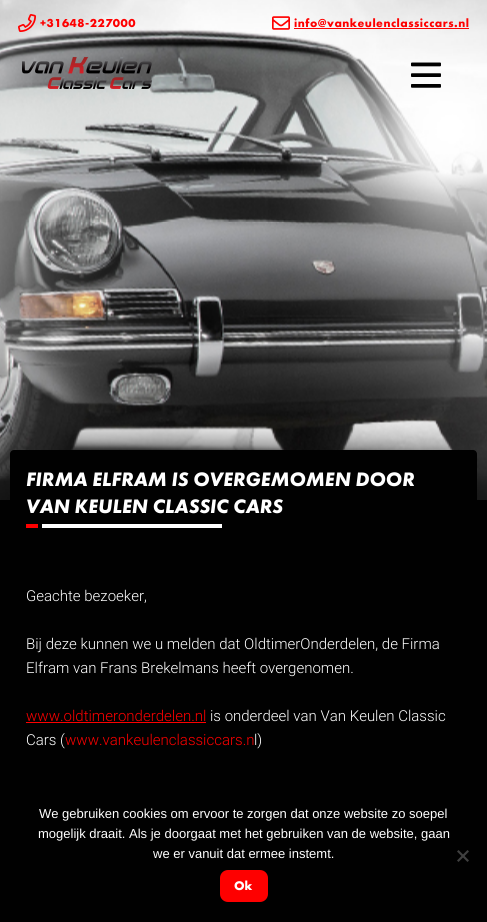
#include <cairo.h>
#include <math.h>
#include <stddef.h>


static void set_color(cairo_t *cr, unsigned color) {
    cairo_set_source_rgb(cr, (color >> 16) / 255.0, (color >> 8 & 255) / 255.0, (color & 255) / 255.0);
}

static void draw_text(cairo_t *cr, double x, double y, const char *s, const char *family, double size, int italic, int bold, unsigned color) {
    cairo_select_font_face(cr, family, italic ? CAIRO_FONT_SLANT_ITALIC : CAIRO_FONT_SLANT_NORMAL,
        bold ? CAIRO_FONT_WEIGHT_BOLD : CAIRO_FONT_WEIGHT_NORMAL);
    cairo_set_font_size(cr, size);
    set_color(cr, color);
    cairo_move_to(cr, x, y);
    cairo_show_text(cr, s);
}

static void draw_spaced(cairo_t *cr, double x, double y, const char *s, double letter, double word) {
    cairo_move_to(cr, x, y);
    while (*s) {
        char ch[5] = {0};
        int n = 0;
        do ch[n++] = *s++; while ((*s & 0xC0) == 0x80);
        cairo_show_text(cr, ch);
        cairo_rel_move_to(cr, letter + word * (*ch == ' '), 0);
    }
}

static void fill_rect(cairo_t *cr, double x, double y, double w, double h, unsigned color) {
    set_color(cr, color);
    cairo_rectangle(cr, x, y, w, h);
    cairo_fill(cr);
}

static void rounded_rect(cairo_t *cr, double x, double y, double w, double h, double r) {
    cairo_new_sub_path(cr);
    cairo_arc(cr, x + w - r, y + h - r, r, 0, M_PI / 2);
    cairo_arc(cr, x + r, y + h - r, r, M_PI / 2, M_PI);
    cairo_arc(cr, x + r, y + r, r, M_PI, 1.5 * M_PI);
    cairo_arc(cr, x + w - r, y + r, r, 1.5 * M_PI, 2 * M_PI);
    cairo_close_path(cr);
}

static void draw_image(cairo_t *cr, const char *path, double x, double y, double w, double h) {
    cairo_surface_t *image = cairo_image_surface_create_from_png(path);
    cairo_save(cr);
    cairo_set_source_surface(cr, image, x, y);
    cairo_rectangle(cr, x, y, w, h);
    cairo_fill(cr);
    cairo_restore(cr);
    cairo_surface_destroy(image);
}

int main(void) {
    cairo_surface_t *surface = cairo_image_surface_create(CAIRO_FORMAT_RGB24, 487, 922);
    cairo_t *cr = cairo_create(surface);
    cairo_font_options_t *options = cairo_font_options_create();
    cairo_font_options_set_hint_metrics(options, CAIRO_HINT_METRICS_OFF);
    cairo_font_options_set_hint_style(options, CAIRO_HINT_STYLE_NONE);
    cairo_set_font_options(cr, options);
    cairo_set_miter_limit(cr, 4);
    set_color(cr, 0x010101);
    cairo_paint(cr);
    draw_image(cr, "assets/img1.png", 0, 0, 487, 500);
    draw_image(cr, "assets/img2.png", 18, 14, 18, 18);
    cairo_select_font_face(cr, "Futura PT", CAIRO_FONT_SLANT_NORMAL, CAIRO_FONT_WEIGHT_BOLD);
    cairo_set_font_size(cr, 12);
    set_color(cr, 0xFE0000);
    draw_spaced(cr, 40, 27, "+31648-227000", 0.5, 0);
    draw_image(cr, "assets/img3.png", 272, 16, 18, 14);
    draw_spaced(cr, 294, 27, "info@vankeulenclassiccars.nl", 0.5, 0);
    fill_rect(cr, 294, 28, 175, 1, 0xFE0000);
    draw_image(cr, "assets/img4.png", 22, 57, 130, 32);
    draw_image(cr, "assets/img5.png", 411, 62, 30, 26);
    set_color(cr, 0x010101);
    rounded_rect(cr, 10, 450, 467, 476, 4);
    cairo_fill(cr);
    draw_text(cr, 26, 486, "FIRMA ELFRAM IS OVERGEMOMEN DOOR", "Futura PT", 20.25, 1, 1, 0xFFFFFF);
    draw_text(cr, 26, 513, "VAN KEULEN CLASSIC CARS", "Futura PT", 20.25, 1, 1, 0xFFFFFF);
    fill_rect(cr, 26, 524, 12, 4, 0xFE0000);
    fill_rect(cr, 42, 524, 180, 4, 0xFFFFFF);
    draw_text(cr, 26, 601, "Geachte bezoeker,", "Roboto Light", 15, 0, 0, 0xFFFFFF);
    draw_text(cr, 26, 649, "Bij deze kunnen we u melden dat OldtimerOnderdelen, de Firma", "Roboto Light", 15, 0, 0, 0xFFFFFF);
    draw_text(cr, 26, 673, "Elfram van Frans Brekelmans heeft overgenomen.", "Roboto Light", 15, 0, 0, 0xFFFFFF);
    draw_text(cr, 26, 721, "www.oldtimeronderdelen.nl", "Roboto Light", 15, 0, 0, 0xFE0000);
    fill_rect(cr, 26, 722, 180, 1, 0xFE0000);
    draw_text(cr, 210, 721, "is onderdeel van Van Keulen Classic", "Roboto Light", 15, 0, 0, 0xFFFFFF);
    draw_text(cr, 26, 745, "Cars (", "Roboto Light", 15, 0, 0, 0xFFFFFF);
    draw_text(cr, 65, 745, "www.vankeulenclassiccars.n", "Roboto Light", 15, 0, 0, 0xFE0000);
    draw_text(cr, 254, 745, "l)", "Roboto Light", 15, 0, 0, 0xFFFFFF);
    draw_text(cr, 39, 818, "We gebruiken cookies om ervoor te zorgen dat onze website zo soepel", "Liberation Sans", 13, 0, 0, 0xFFFFFF);
    draw_text(cr, 38, 838, "mogelijk draait. Als je doorgaat met het gebruiken van de website, gaan", "Liberation Sans", 13, 0, 0, 0xFFFFFF);
    draw_text(cr, 153, 858, "we er vanuit dat ermee instemt.", "Liberation Sans", 13, 0, 0, 0xFFFFFF);
    set_color(cr, 0x404040);
    cairo_new_path(cr);
    cairo_move_to(cr, 467.5, 850);
    cairo_line_to(cr, 469, 851.5);
    cairo_line_to(cr, 458.5, 862);
    cairo_line_to(cr, 457, 860.5);
    cairo_close_path(cr);
    cairo_fill(cr);
    cairo_new_path(cr);
    cairo_move_to(cr, 457, 851.5);
    cairo_line_to(cr, 458.5, 850);
    cairo_line_to(cr, 469, 860.5);
    cairo_line_to(cr, 467.5, 862);
    cairo_close_path(cr);
    cairo_fill(cr);
    set_color(cr, 0xFE0000);
    rounded_rect(cr, 220, 870, 48, 32, 8);
    cairo_fill(cr);
    draw_text(cr, 234, 890, "Ok", "Futura PT", 13, 0, 1, 0xFFFFFF);
    cairo_surface_write_to_png(surface, "output.png");
    cairo_font_options_destroy(options);
    cairo_destroy(cr);
    cairo_surface_destroy(surface);
    return 0;
}
